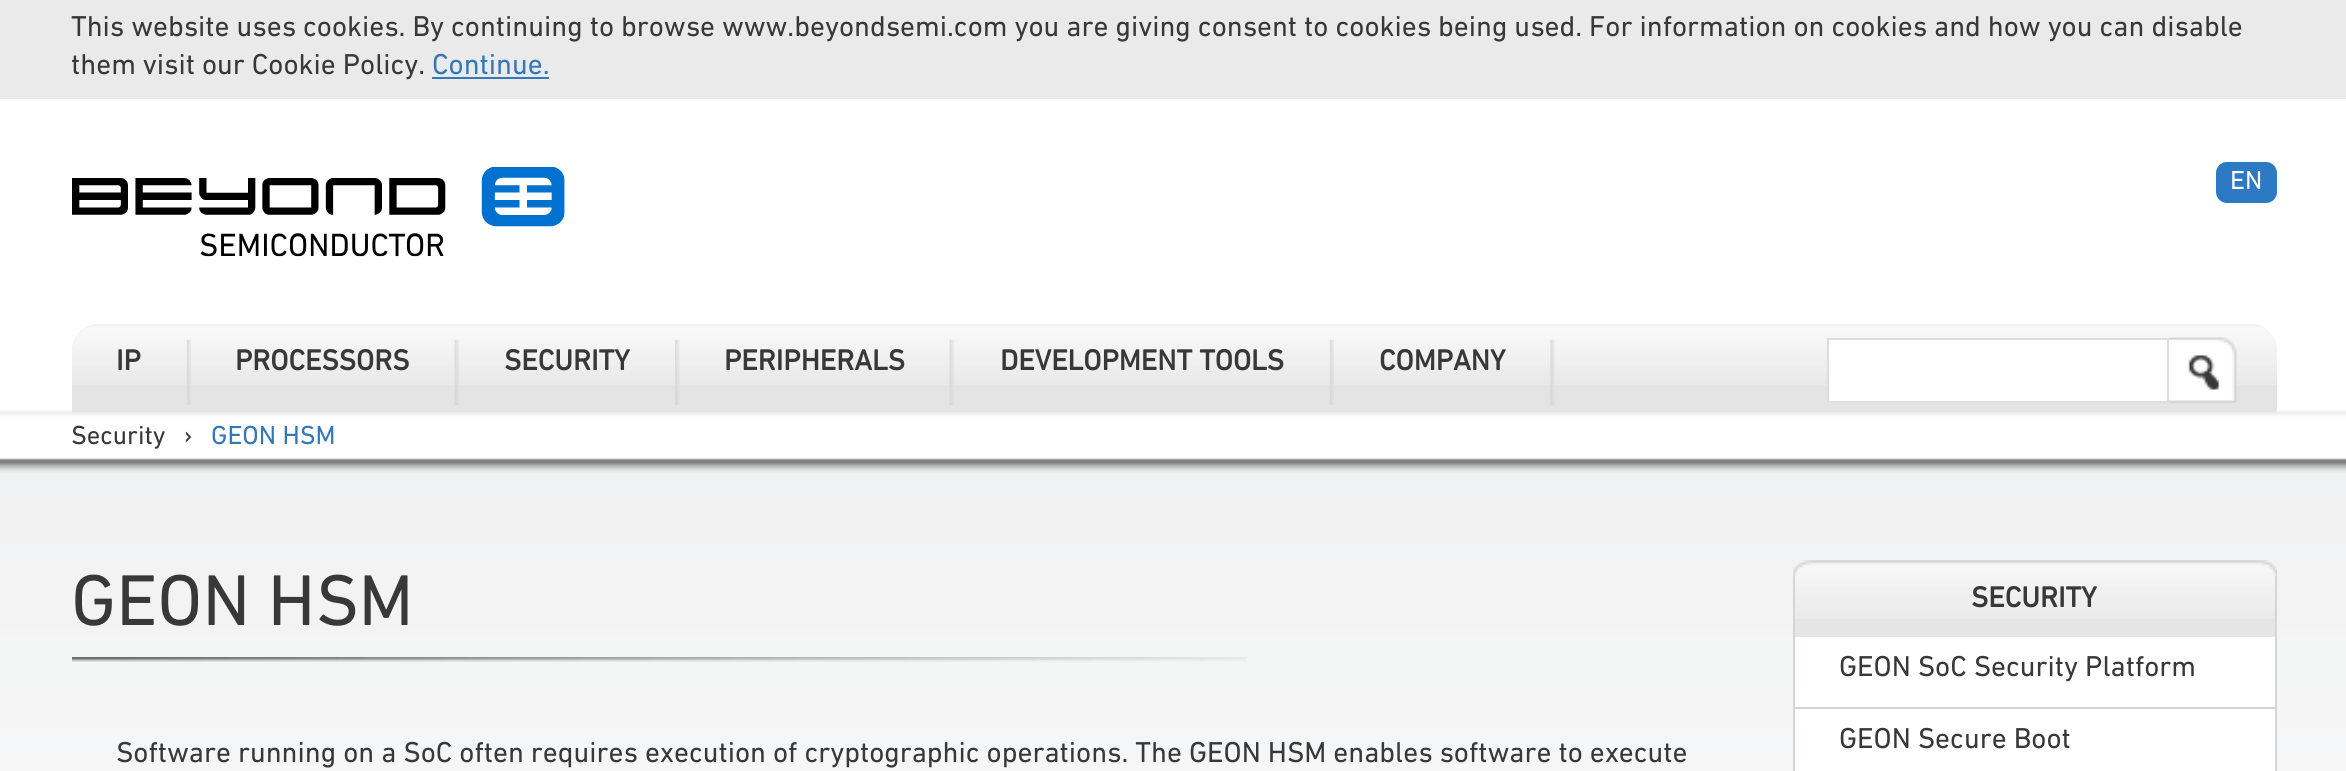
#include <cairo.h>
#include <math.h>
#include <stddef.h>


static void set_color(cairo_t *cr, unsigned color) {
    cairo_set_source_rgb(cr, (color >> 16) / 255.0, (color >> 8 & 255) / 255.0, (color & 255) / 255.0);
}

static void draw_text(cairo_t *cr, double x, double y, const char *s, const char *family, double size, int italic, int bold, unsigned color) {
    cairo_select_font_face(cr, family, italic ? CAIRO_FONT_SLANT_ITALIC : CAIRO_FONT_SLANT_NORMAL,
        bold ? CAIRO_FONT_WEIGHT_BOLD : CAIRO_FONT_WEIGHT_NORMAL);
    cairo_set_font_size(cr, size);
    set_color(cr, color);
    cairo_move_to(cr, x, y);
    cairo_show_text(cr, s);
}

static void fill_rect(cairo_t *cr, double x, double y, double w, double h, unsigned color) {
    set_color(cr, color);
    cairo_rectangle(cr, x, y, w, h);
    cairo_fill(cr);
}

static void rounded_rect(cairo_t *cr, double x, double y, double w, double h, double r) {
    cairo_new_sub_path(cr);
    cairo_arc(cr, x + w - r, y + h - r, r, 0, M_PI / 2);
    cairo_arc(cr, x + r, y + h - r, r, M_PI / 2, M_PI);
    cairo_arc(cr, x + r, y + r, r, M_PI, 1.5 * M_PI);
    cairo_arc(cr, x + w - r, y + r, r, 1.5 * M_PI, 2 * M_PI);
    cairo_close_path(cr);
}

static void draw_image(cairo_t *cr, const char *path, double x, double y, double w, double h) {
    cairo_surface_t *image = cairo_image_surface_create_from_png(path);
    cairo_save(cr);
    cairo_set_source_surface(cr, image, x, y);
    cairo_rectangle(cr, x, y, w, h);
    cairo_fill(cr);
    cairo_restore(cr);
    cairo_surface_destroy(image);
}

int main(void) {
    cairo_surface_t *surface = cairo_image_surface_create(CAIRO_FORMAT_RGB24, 2346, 771);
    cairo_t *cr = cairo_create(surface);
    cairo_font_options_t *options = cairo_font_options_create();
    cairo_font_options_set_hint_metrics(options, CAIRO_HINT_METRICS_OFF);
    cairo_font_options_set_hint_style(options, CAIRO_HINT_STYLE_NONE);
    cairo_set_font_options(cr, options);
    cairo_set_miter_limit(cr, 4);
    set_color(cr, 0xFFFFFF);
    cairo_paint(cr);
    fill_rect(cr, 0, 0, 2346, 99, 0xEAEAEA);
    draw_text(cr, 71, 36, "This website uses cookies. By continuing to browse www.beyondsemi.com you are giving consent to cookies being used. For information on cookies and how you can disable", "DIN Next", 29.25, 0, 0, 0x393838);
    draw_text(cr, 71, 74, "them visit our Cookie Policy.", "DIN Next", 29.25, 0, 0, 0x393838);
    draw_text(cr, 432, 74, "Continue.", "DIN Next", 29.25, 0, 0, 0x3378B8);
    fill_rect(cr, 432, 77, 117, 2, 0x3378B8);
    draw_image(cr, "assets/img1.png", 0, 410, 2346, 361);
    draw_image(cr, "assets/img2.png", 72, 167, 493, 90);
    set_color(cr, 0x2C7AC4);
    rounded_rect(cr, 2216, 162, 61, 41, 11);
    cairo_fill(cr);
    draw_text(cr, 2230, 189, "EN", "DIN Next", 26.5, 0, 0, 0xFFFFFF);
    set_color(cr, 0xE5E4E4);
    cairo_new_path(cr);
    cairo_move_to(cr, 99, 324);
    cairo_line_to(cr, 2250, 324);
    cairo_curve_to(cr, 2265, 324, 2277, 336, 2277, 351);
    cairo_line_to(cr, 2277, 412);
    cairo_line_to(cr, 72, 412);
    cairo_line_to(cr, 72, 351);
    cairo_curve_to(cr, 72, 336, 84, 324, 99, 324);
    cairo_close_path(cr);
    cairo_fill(cr);
    draw_image(cr, "assets/img3.png", 72, 324, 2205, 61);
    draw_text(cr, 116, 370, "IP", "DIN Next", 29.25, 0, 1, 0x393838);
    draw_image(cr, "assets/img4.png", 186, 339, 5, 66);
    draw_text(cr, 235, 370, "PROCESSORS", "DIN Next", 29.25, 0, 1, 0x393838);
    draw_image(cr, "assets/img5.png", 454, 339, 5, 66);
    draw_text(cr, 504, 370, "SECURITY", "DIN Next", 29.25, 0, 1, 0x393838);
    draw_image(cr, "assets/img6.png", 675, 339, 5, 66);
    draw_text(cr, 724, 370, "PERIPHERALS", "DIN Next", 29.25, 0, 1, 0x393838);
    draw_image(cr, "assets/img5.png", 949, 339, 5, 66);
    draw_text(cr, 1000, 370, "DEVELOPMENT TOOLS", "DIN Next", 29.25, 0, 1, 0x393838);
    draw_image(cr, "assets/img4.png", 1329, 339, 5, 66);
    draw_text(cr, 1379, 370, "COMPANY", "DIN Next", 29.25, 0, 1, 0x393838);
    draw_image(cr, "assets/img7.png", 1550, 339, 5, 66);
    set_color(cr, 0xFFFFFF);
    cairo_rectangle(cr, 1828, 339, 340, 63);
    cairo_fill_preserve(cr);
    set_color(cr, 0xDDDDDD);
    cairo_stroke(cr);
    draw_image(cr, "assets/img8.png", 2169, 337, 68, 66);
    draw_text(cr, 71, 444, "Security", "DIN Next", 26.5, 0, 0, 0x393838);
    draw_text(cr, 184, 444, "›", "DIN Next", 26.5, 0, 0, 0x393838);
    draw_text(cr, 211, 444, "GEON HSM", "DIN Next", 26.5, 0, 0, 0x3378B8);
    draw_image(cr, "assets/img9.png", 72, 657, 1176, 5);
    draw_text(cr, 71, 625, "GEON HSM", "DIN Next", 73, 0, 0, 0x393838);
    draw_text(cr, 116, 762, "Software running on a SoC often requires execution of cryptographic operations. The GEON HSM enables software to execute", "DIN Next", 29.25, 0, 0, 0x393838);
    draw_image(cr, "assets/img10.png", 1793, 560, 484, 16);
    fill_rect(cr, 1795, 619, 480, 18, 0xE6E5E5);
    draw_image(cr, "assets/img11.png", 1795, 576, 480, 43);
    fill_rect(cr, 2275, 576, 2, 195, 0xD4D6D6);
    fill_rect(cr, 1793, 576, 2, 61, 0xD4D6D6);
    draw_text(cr, 1971, 607, "SECURITY", "DIN Next", 29.25, 0, 1, 0x393838);
    fill_rect(cr, 1795, 637, 480, 70, 0xFFFFFF);
    fill_rect(cr, 1793, 707, 484, 2, 0xD4D6D6);
    fill_rect(cr, 1793, 637, 2, 134, 0xD4D6D6);
    draw_text(cr, 1839, 676, "GEON SoC Security Platform", "DIN Next", 29.25, 0, 0, 0x393838);
    fill_rect(cr, 1795, 709, 480, 62, 0xFFFFFF);
    draw_text(cr, 1839, 748, "GEON Secure Boot", "DIN Next", 29.25, 0, 0, 0x393838);
    cairo_surface_write_to_png(surface, "output.png");
    cairo_font_options_destroy(options);
    cairo_destroy(cr);
    cairo_surface_destroy(surface);
    return 0;
}
